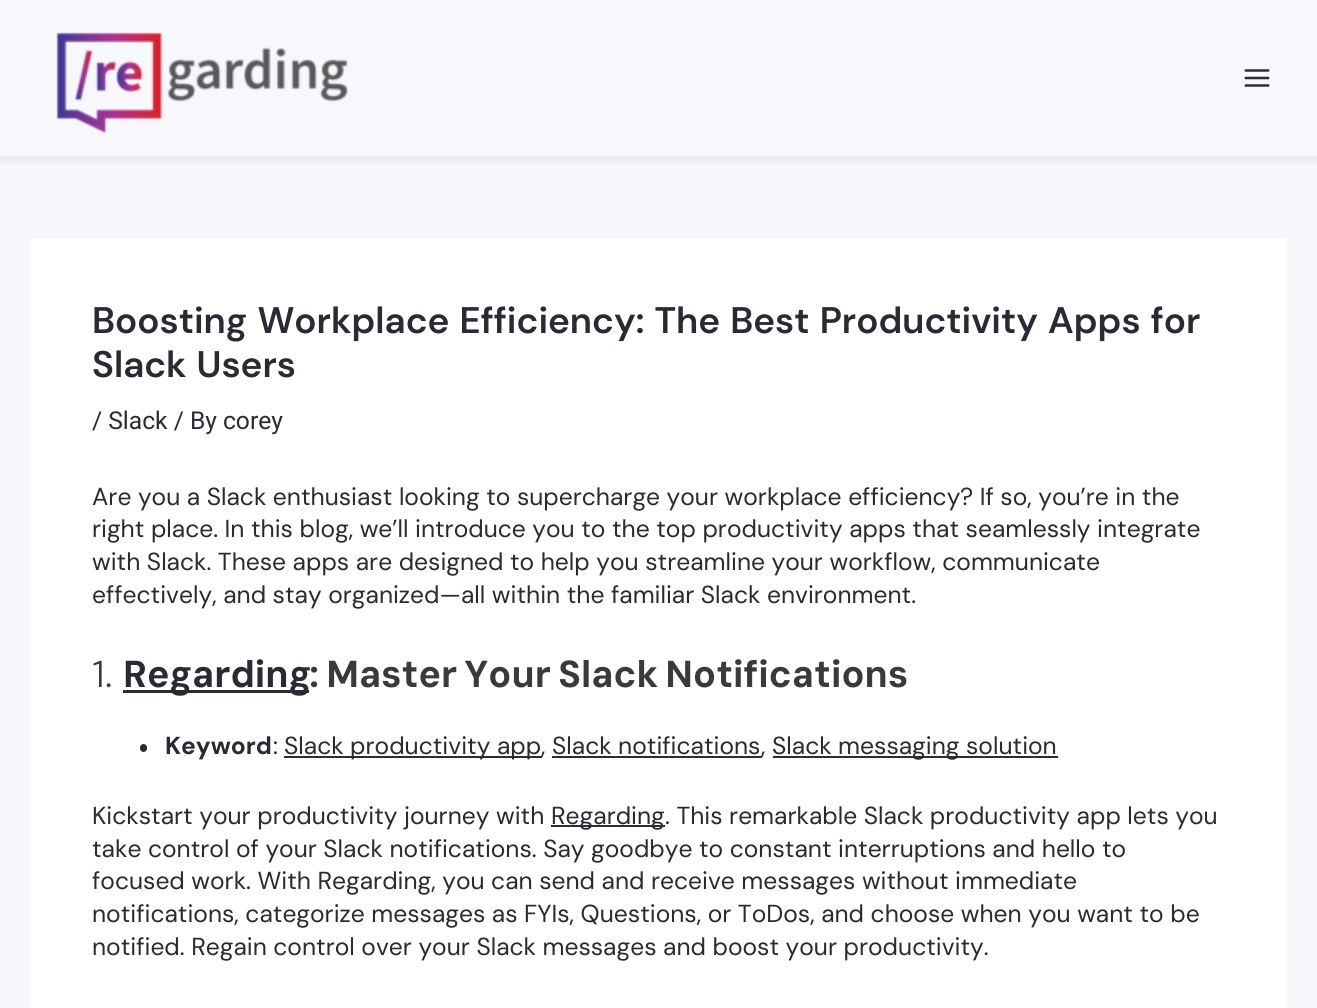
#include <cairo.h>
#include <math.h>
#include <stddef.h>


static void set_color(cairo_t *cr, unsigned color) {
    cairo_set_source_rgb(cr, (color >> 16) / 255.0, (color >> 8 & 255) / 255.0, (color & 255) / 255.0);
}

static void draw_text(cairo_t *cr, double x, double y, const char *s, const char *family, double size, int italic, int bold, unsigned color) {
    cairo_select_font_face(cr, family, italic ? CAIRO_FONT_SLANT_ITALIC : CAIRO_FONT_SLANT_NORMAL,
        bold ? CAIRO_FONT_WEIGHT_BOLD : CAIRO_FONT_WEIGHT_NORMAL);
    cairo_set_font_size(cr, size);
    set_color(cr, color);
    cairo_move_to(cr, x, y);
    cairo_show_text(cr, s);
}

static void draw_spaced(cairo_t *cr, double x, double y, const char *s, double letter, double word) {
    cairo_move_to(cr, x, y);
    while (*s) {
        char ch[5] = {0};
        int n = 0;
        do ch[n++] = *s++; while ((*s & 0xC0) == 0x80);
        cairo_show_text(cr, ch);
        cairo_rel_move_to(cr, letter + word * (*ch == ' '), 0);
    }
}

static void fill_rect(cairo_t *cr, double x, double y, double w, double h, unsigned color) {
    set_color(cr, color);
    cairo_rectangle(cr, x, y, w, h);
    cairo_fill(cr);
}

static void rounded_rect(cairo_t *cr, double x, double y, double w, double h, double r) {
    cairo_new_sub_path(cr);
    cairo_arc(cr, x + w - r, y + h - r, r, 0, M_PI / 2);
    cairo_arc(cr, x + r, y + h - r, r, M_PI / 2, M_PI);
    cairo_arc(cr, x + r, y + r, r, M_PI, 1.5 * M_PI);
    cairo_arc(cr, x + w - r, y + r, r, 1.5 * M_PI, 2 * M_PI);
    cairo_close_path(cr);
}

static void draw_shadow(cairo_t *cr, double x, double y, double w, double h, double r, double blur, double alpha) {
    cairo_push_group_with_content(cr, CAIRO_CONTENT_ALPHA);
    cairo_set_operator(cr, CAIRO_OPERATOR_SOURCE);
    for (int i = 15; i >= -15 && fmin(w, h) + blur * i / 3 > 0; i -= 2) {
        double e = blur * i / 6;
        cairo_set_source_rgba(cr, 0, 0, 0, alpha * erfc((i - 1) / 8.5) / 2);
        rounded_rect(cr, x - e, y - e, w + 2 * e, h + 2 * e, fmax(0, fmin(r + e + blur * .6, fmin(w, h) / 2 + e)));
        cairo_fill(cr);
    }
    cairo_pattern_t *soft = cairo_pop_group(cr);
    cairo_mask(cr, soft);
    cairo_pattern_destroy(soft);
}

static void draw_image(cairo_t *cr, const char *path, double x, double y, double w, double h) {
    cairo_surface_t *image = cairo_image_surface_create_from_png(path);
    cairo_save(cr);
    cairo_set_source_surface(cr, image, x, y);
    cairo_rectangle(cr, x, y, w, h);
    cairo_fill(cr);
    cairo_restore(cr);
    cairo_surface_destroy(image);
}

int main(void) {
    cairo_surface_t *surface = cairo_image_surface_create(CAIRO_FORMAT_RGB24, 1317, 1008);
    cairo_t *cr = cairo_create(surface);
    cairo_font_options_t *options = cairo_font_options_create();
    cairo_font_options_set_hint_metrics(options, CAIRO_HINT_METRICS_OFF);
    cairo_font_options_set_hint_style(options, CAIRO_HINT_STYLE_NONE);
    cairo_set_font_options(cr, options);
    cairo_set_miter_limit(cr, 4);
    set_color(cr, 0xF6F7FA);
    cairo_paint(cr);
    set_color(cr, 0x050505);
    draw_shadow(cr, -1, -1, 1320, 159, 0, 5, 0.12);
    fill_rect(cr, 0, 0, 1317, 155, 0xF7F8FB);
    fill_rect(cr, 0, 155, 1317, 2, 0xF2F5F7);
    draw_image(cr, "assets/img1.png", 56, 32, 293, 102);
    draw_image(cr, "assets/img2.png", 1244, 69, 26, 18);
    fill_rect(cr, 30, 239, 1257, 769, 0xFFFFFF);
    cairo_select_font_face(cr, "DM Sans SemiBold", CAIRO_FONT_SLANT_NORMAL, CAIRO_FONT_WEIGHT_NORMAL);
    cairo_set_font_size(cr, 36.95);
    set_color(cr, 0x292A33);
    draw_spaced(cr, 92, 333, "Boosting Workplace Efficiency: The Best Productivity Apps for", 0, 1.25);
    draw_spaced(cr, 92, 377, "Slack Users", 0, 1);
    draw_text(cr, 92, 429, "/ Slack / By corey", "Roboto", 24.6, 0, 0, 0x292A33);
    draw_text(cr, 92, 505, "Are you a Slack enthusiast looking to supercharge your workplace efficiency? If so, you’re in the", "DM Sans", 24.6, 0, 0, 0x292A33);
    draw_text(cr, 92, 537, "right place. In this blog, we’ll introduce you to the top productivity apps that seamlessly integrate", "DM Sans", 24.6, 0, 0, 0x292A33);
    draw_text(cr, 92, 570, "with Slack. These apps are designed to help you streamline your workflow, communicate", "DM Sans", 24.6, 0, 0, 0x292A33);
    draw_text(cr, 92, 603, "effectively, and stay organized—all within the familiar Slack environment.", "DM Sans", 24.6, 0, 0, 0x292A33);
    draw_text(cr, 92, 687, "1.", "DM Sans Light", 37.5, 0, 0, 0x3A3A3A);
    fill_rect(cr, 123, 690, 186, 3, 0x2A2C37);
    draw_text(cr, 123, 687, "Regarding", "DM Sans", 37.5, 0, 1, 0x292A33);
    set_color(cr, 0x3A3A3A);
    draw_spaced(cr, 309, 687, ": Master Your Slack Notifications", 0, -2);
    set_color(cr, 0x292B37);
    rounded_rect(cr, 140, 744, 7, 8, 3.5);
    cairo_fill(cr);
    draw_text(cr, 165, 754, "Keyword", "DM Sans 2", 24.6, 0, 1, 0x292A33);
    draw_text(cr, 273, 754, ":", "DM Sans", 24.6, 0, 0, 0x292A33);
    fill_rect(cr, 284, 756, 258, 2, 0x2A2C37);
    draw_text(cr, 284, 754, "Slack productivity app", "DM Sans", 24.6, 0, 0, 0x292A33);
    draw_text(cr, 552, 754, "Slack notifications", "DM Sans", 24.6, 0, 0, 0x292A33);
    fill_rect(cr, 552, 756, 210, 2, 0x2A2C37);
    fill_rect(cr, 773, 756, 285, 2, 0x2A2C37);
    draw_text(cr, 772, 754, "Slack messaging solution", "DM Sans", 24.6, 0, 0, 0x292A33);
    draw_text(cr, 541, 754, ",", "DM Sans", 24.6, 0, 0, 0x292A33);
    draw_text(cr, 761, 754, ",", "DM Sans", 24.6, 0, 0, 0x292A33);
    draw_text(cr, 92, 824, "Kickstart your productivity journey with", "DM Sans", 24.6, 0, 0, 0x292A33);
    fill_rect(cr, 551, 825, 114, 2, 0x2A2C37);
    draw_text(cr, 551, 824, "Regarding", "DM Sans", 24.6, 0, 0, 0x292A33);
    draw_text(cr, 665, 824, ". This remarkable Slack productivity app lets you", "DM Sans", 24.6, 0, 0, 0x292A33);
    draw_text(cr, 92, 857, "take control of your Slack notifications. Say goodbye to constant interruptions and hello to", "DM Sans", 24.6, 0, 0, 0x292A33);
    draw_text(cr, 92, 889, "focused work. With Regarding, you can send and receive messages without immediate", "DM Sans", 24.6, 0, 0, 0x292A33);
    draw_text(cr, 92, 922, "notifications, categorize messages as FYIs, Questions, or ToDos, and choose when you want to be", "DM Sans", 24.6, 0, 0, 0x292A33);
    draw_text(cr, 92, 955, "notified. Regain control over your Slack messages and boost your productivity.", "DM Sans", 24.6, 0, 0, 0x292A33);
    cairo_surface_write_to_png(surface, "output.png");
    cairo_font_options_destroy(options);
    cairo_destroy(cr);
    cairo_surface_destroy(surface);
    return 0;
}
